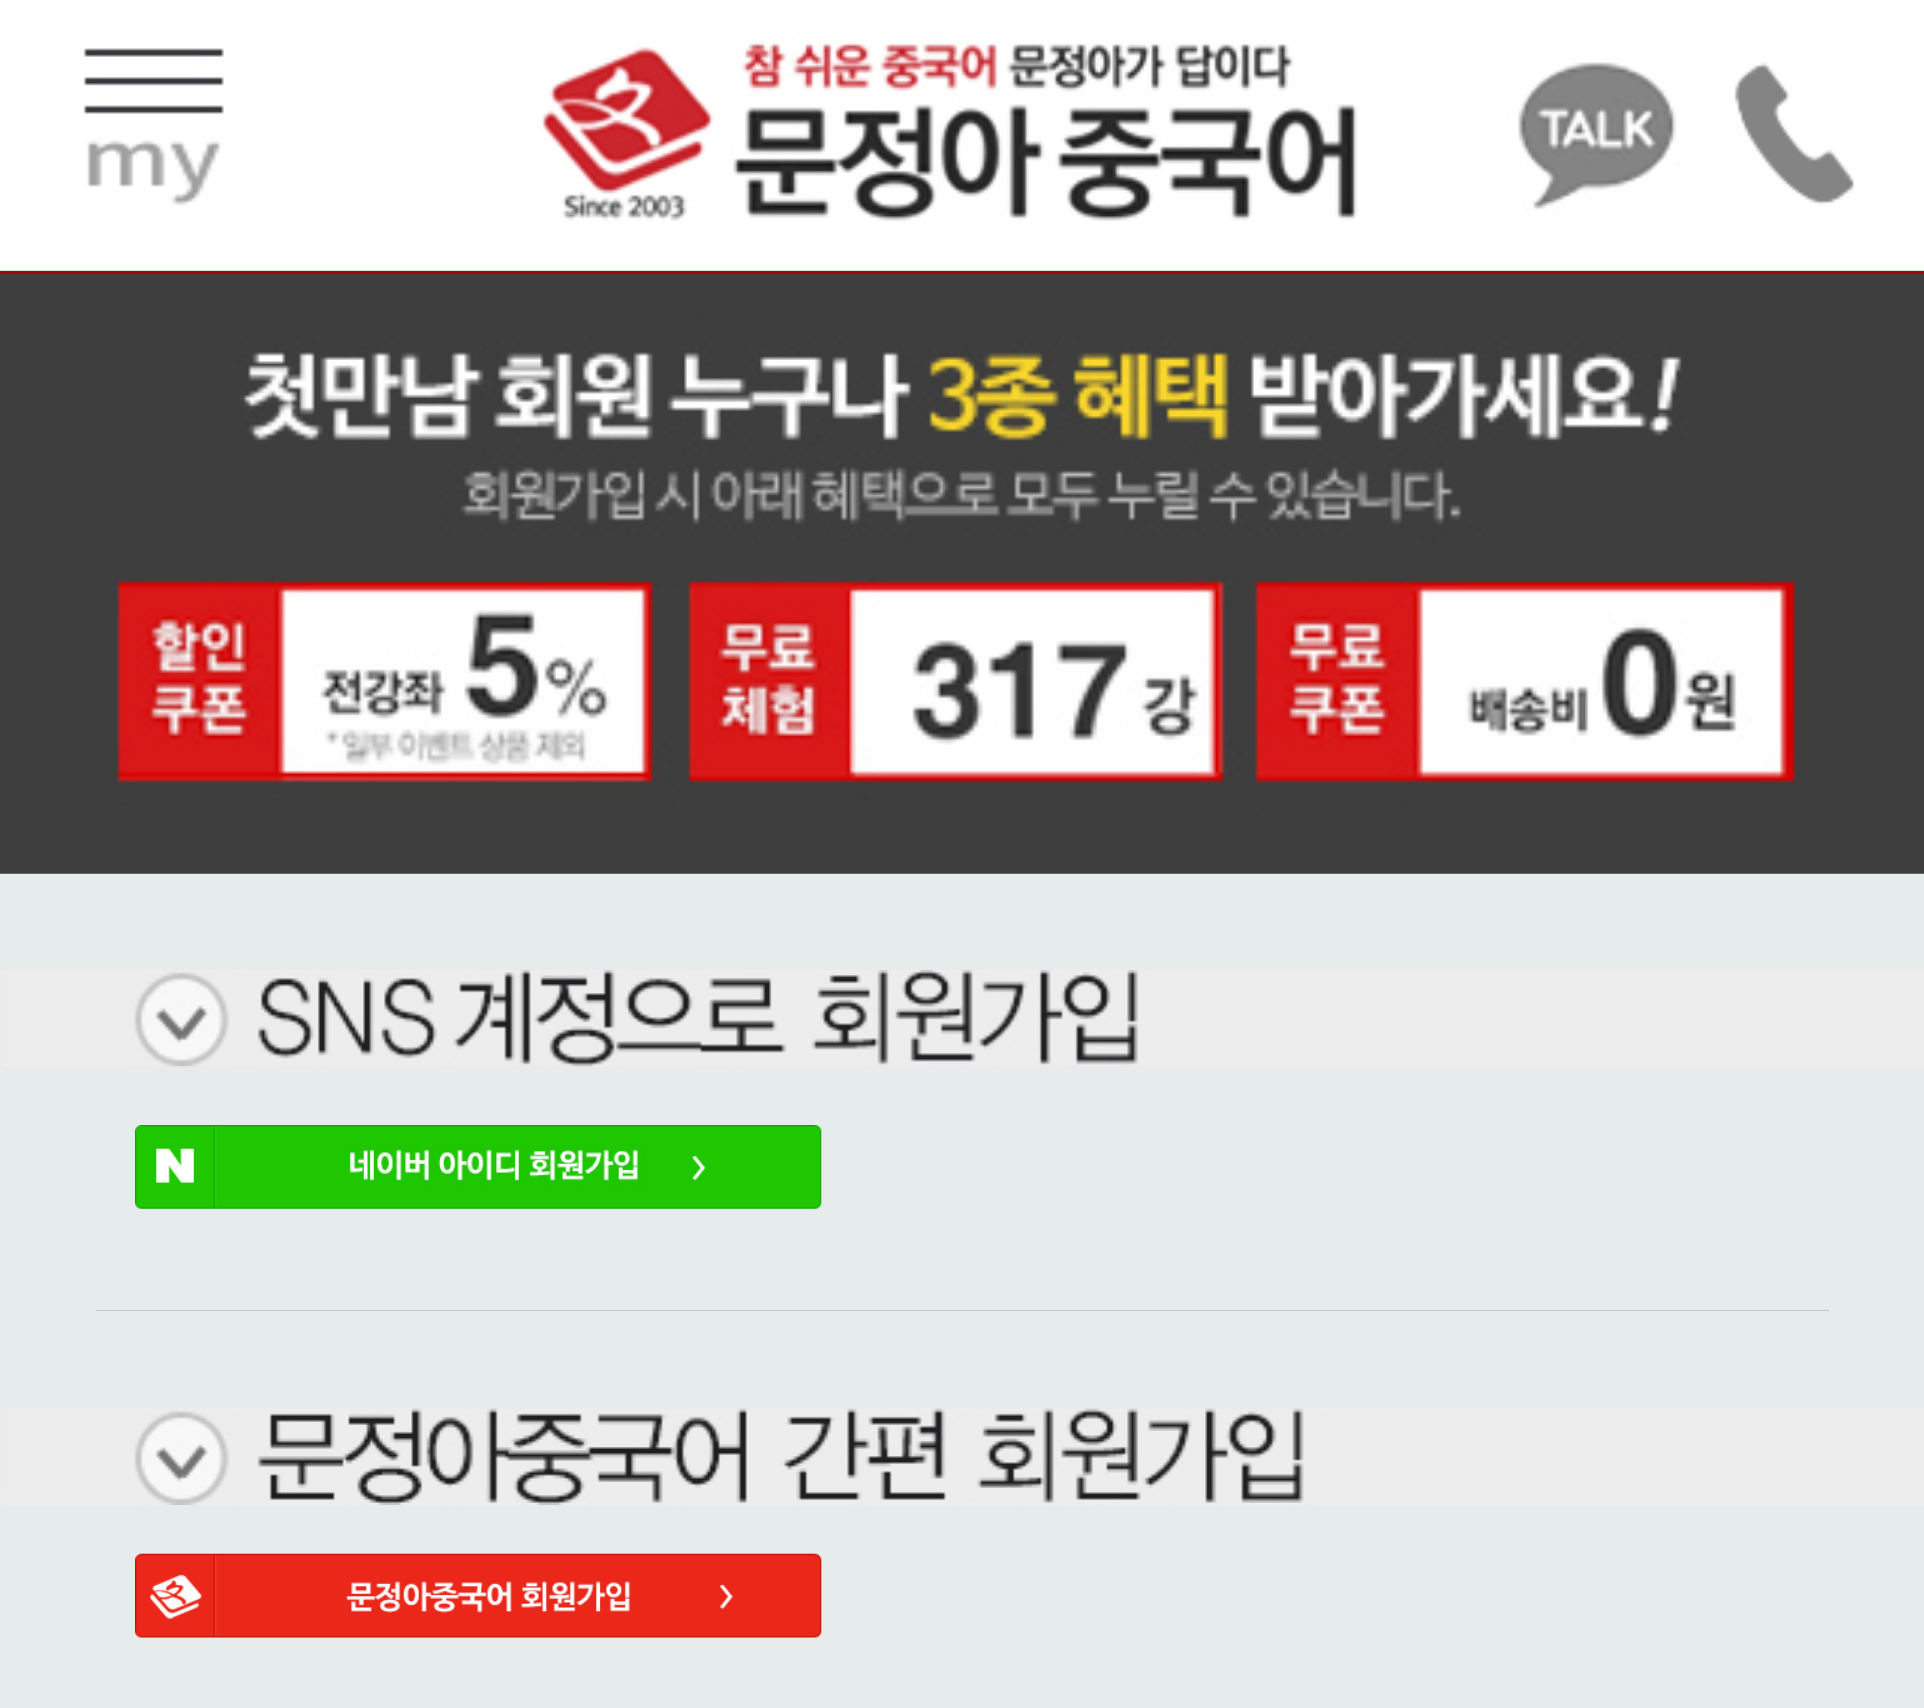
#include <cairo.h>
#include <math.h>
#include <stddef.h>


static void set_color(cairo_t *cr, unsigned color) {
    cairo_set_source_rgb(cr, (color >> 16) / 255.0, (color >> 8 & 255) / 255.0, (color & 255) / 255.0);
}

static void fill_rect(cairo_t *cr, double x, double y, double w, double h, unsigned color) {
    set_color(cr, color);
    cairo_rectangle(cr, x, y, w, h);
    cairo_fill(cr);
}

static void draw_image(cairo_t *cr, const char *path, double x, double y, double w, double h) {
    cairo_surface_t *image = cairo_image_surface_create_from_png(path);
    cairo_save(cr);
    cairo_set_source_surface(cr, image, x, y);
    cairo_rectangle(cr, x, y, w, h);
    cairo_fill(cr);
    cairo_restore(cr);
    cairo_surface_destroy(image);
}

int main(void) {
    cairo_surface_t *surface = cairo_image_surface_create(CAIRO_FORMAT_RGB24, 1924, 1708);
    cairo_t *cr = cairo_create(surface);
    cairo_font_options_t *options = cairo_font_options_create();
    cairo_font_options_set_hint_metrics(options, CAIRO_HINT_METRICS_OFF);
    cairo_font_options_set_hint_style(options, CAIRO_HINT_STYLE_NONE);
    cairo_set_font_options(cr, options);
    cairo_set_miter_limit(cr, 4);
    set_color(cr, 0xFFFFFF);
    cairo_paint(cr);
    fill_rect(cr, 0, 270, 1924, 1, 0xDCDCDC);
    draw_image(cr, "assets/img1.png", 83, 48, 141, 158);
    draw_image(cr, "assets/img2.png", 541, 31, 1313, 190);
    fill_rect(cr, 0, 271, 1924, 3, 0xA90007);
    fill_rect(cr, 0, 873, 1924, 835, 0xE6EBEB);
    draw_image(cr, "assets/img3.png", 0, 273, 1924, 601);
    draw_image(cr, "assets/img4.png", 0, 970, 1924, 97);
    draw_image(cr, "assets/img5.png", 135, 1125, 687, 84);
    fill_rect(cr, 96, 1310, 1733, 1, 0xC4C3C3);
    draw_image(cr, "assets/img6.png", 0, 1408, 1924, 97);
    draw_image(cr, "assets/img7.png", 135, 1553, 687, 85);
    cairo_surface_write_to_png(surface, "output.png");
    cairo_font_options_destroy(options);
    cairo_destroy(cr);
    cairo_surface_destroy(surface);
    return 0;
}
